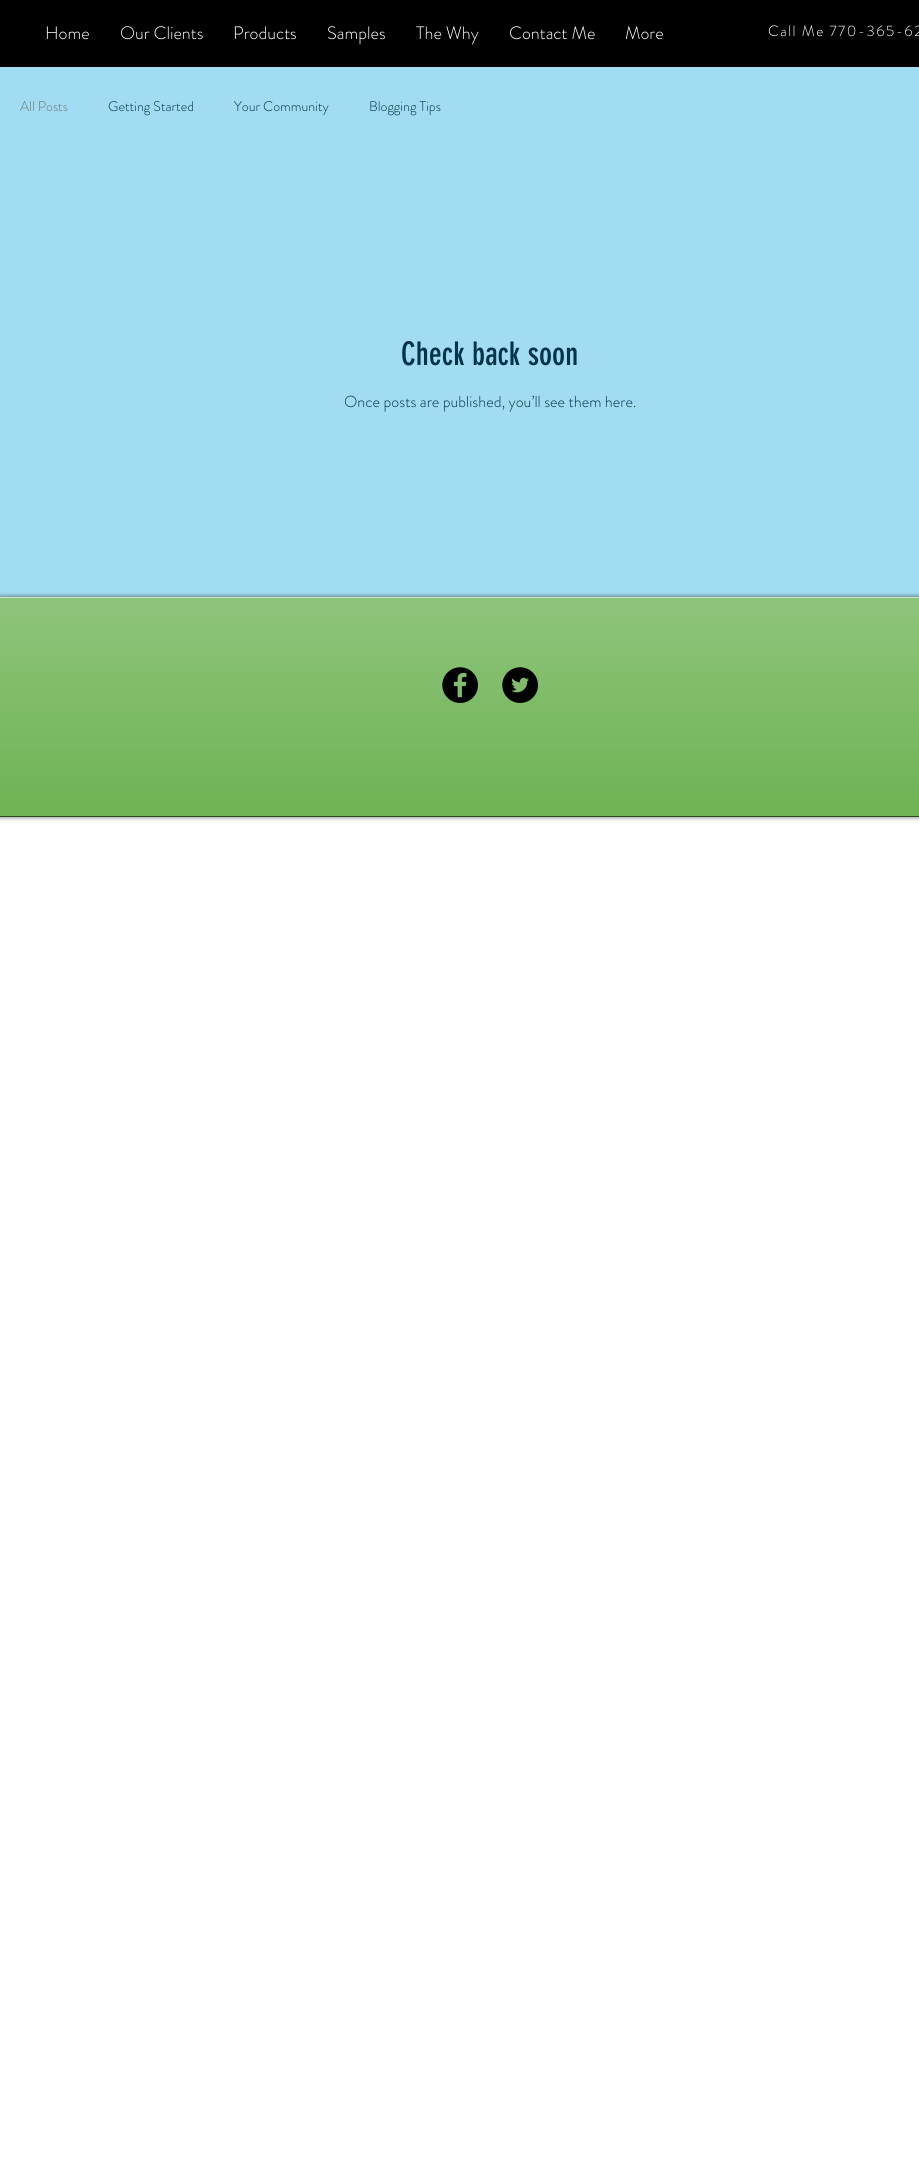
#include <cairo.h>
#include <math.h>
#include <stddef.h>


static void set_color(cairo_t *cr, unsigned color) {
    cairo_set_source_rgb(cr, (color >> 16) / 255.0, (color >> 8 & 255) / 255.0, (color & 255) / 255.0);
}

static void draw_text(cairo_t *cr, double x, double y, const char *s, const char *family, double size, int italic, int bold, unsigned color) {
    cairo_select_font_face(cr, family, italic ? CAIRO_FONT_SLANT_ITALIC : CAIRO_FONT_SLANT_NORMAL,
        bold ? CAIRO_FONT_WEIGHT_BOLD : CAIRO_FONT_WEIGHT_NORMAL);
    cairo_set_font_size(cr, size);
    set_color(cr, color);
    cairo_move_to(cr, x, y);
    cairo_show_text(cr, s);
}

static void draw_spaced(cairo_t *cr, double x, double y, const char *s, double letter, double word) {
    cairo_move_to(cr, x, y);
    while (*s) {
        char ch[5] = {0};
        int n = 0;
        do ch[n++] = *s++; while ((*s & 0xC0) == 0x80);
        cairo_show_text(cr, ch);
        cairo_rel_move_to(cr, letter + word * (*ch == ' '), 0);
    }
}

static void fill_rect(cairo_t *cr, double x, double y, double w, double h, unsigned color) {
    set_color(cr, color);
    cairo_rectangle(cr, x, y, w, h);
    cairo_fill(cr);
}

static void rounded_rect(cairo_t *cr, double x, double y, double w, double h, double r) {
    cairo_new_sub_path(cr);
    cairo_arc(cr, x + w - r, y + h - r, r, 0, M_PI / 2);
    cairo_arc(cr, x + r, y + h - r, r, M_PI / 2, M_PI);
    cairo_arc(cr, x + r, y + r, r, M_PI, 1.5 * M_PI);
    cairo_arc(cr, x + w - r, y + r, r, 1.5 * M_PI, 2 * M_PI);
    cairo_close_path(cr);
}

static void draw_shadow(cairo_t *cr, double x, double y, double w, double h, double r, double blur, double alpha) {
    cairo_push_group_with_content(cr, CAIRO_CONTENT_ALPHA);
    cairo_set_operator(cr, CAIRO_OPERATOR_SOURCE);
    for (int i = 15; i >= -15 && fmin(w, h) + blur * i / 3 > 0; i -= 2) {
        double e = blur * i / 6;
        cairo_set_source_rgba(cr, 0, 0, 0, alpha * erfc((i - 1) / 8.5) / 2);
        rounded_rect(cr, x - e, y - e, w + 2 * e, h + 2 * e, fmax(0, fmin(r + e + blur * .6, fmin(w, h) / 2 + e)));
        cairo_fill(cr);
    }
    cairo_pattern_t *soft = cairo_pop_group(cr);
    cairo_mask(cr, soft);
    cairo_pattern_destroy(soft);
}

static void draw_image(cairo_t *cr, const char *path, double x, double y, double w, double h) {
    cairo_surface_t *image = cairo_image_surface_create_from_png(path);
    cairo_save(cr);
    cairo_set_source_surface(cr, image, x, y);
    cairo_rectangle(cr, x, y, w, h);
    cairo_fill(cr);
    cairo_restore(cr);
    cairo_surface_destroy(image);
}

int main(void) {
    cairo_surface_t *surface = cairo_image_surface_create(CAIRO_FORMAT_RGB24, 919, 2178);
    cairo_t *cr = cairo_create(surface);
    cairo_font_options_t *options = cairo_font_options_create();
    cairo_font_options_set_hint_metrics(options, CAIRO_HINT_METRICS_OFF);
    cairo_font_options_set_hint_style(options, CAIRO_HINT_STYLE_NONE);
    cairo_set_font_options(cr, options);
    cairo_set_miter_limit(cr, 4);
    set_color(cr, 0xFFFFFF);
    cairo_paint(cr);
    fill_rect(cr, 0, 0, 919, 67, 0x000000);
    draw_text(cr, 45, 39, "Home", "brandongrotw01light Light", 18, 0, 0, 0xFFFFFF);
    draw_text(cr, 120, 39, "Our Clients", "brandongrotw01light Light", 18, 0, 0, 0xFFFFFF);
    draw_text(cr, 233, 39, "Products", "brandongrotw01light Light", 18, 0, 0, 0xFFFFFF);
    draw_text(cr, 327, 39, "Samples", "brandongrotw01light Light", 18, 0, 0, 0xFFFFFF);
    draw_text(cr, 416, 39, "The Why", "brandongrotw01light Light", 18, 0, 0, 0xFFFFFF);
    draw_text(cr, 509, 39, "Contact Me", "brandongrotw01light Light", 18, 0, 0, 0xFFFFFF);
    draw_text(cr, 625, 39, "More", "brandongrotw01light Light", 18, 0, 0, 0xFFFFFF);
    cairo_set_font_size(cr, 15);
    draw_spaced(cr, 768, 36, "Call Me 770-365-62", 1.5, 0);
    fill_rect(cr, 0, 67, 919, 530, 0xA1DCF2);
    draw_text(cr, 20, 111, "All Posts", "brandongrotw01light Light", 14, 0, 0, 0x747575);
    draw_text(cr, 108, 111, "Getting Started", "brandongrotw01light Light", 14, 0, 0, 0x003448);
    draw_text(cr, 234, 111, "Your Community", "brandongrotw01light Light", 14, 0, 0, 0x003448);
    draw_text(cr, 369, 111, "Blogging Tips", "brandongrotw01light Light", 14, 0, 0, 0x003448);
    draw_text(cr, 401, 365, "Check back soon", "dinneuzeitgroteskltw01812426", 32, 0, 0, 0x003448);
    draw_text(cr, 344, 407, "Once posts are published, you’ll see them here.", "brandongrotw01light Light", 16, 0, 0, 0x003448);
    set_color(cr, 0x000000);
    draw_shadow(cr, 0, 597, 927, 220, 0, 2.5, 0.6);
    fill_rect(cr, 0, 598, 919, 218, 0x68B04D);
    draw_image(cr, "assets/img1.png", 0, 598, 919, 218);
    fill_rect(cr, 0, 816, 919, 1, 0x2C4822);
    fill_rect(cr, 0, 597, 919, 1, 0xD2E8CA);
    draw_image(cr, "assets/img2.png", 442, 667, 36, 36);
    draw_image(cr, "assets/img3.png", 502, 667, 36, 36);
    cairo_surface_write_to_png(surface, "output.png");
    cairo_font_options_destroy(options);
    cairo_destroy(cr);
    cairo_surface_destroy(surface);
    return 0;
}
